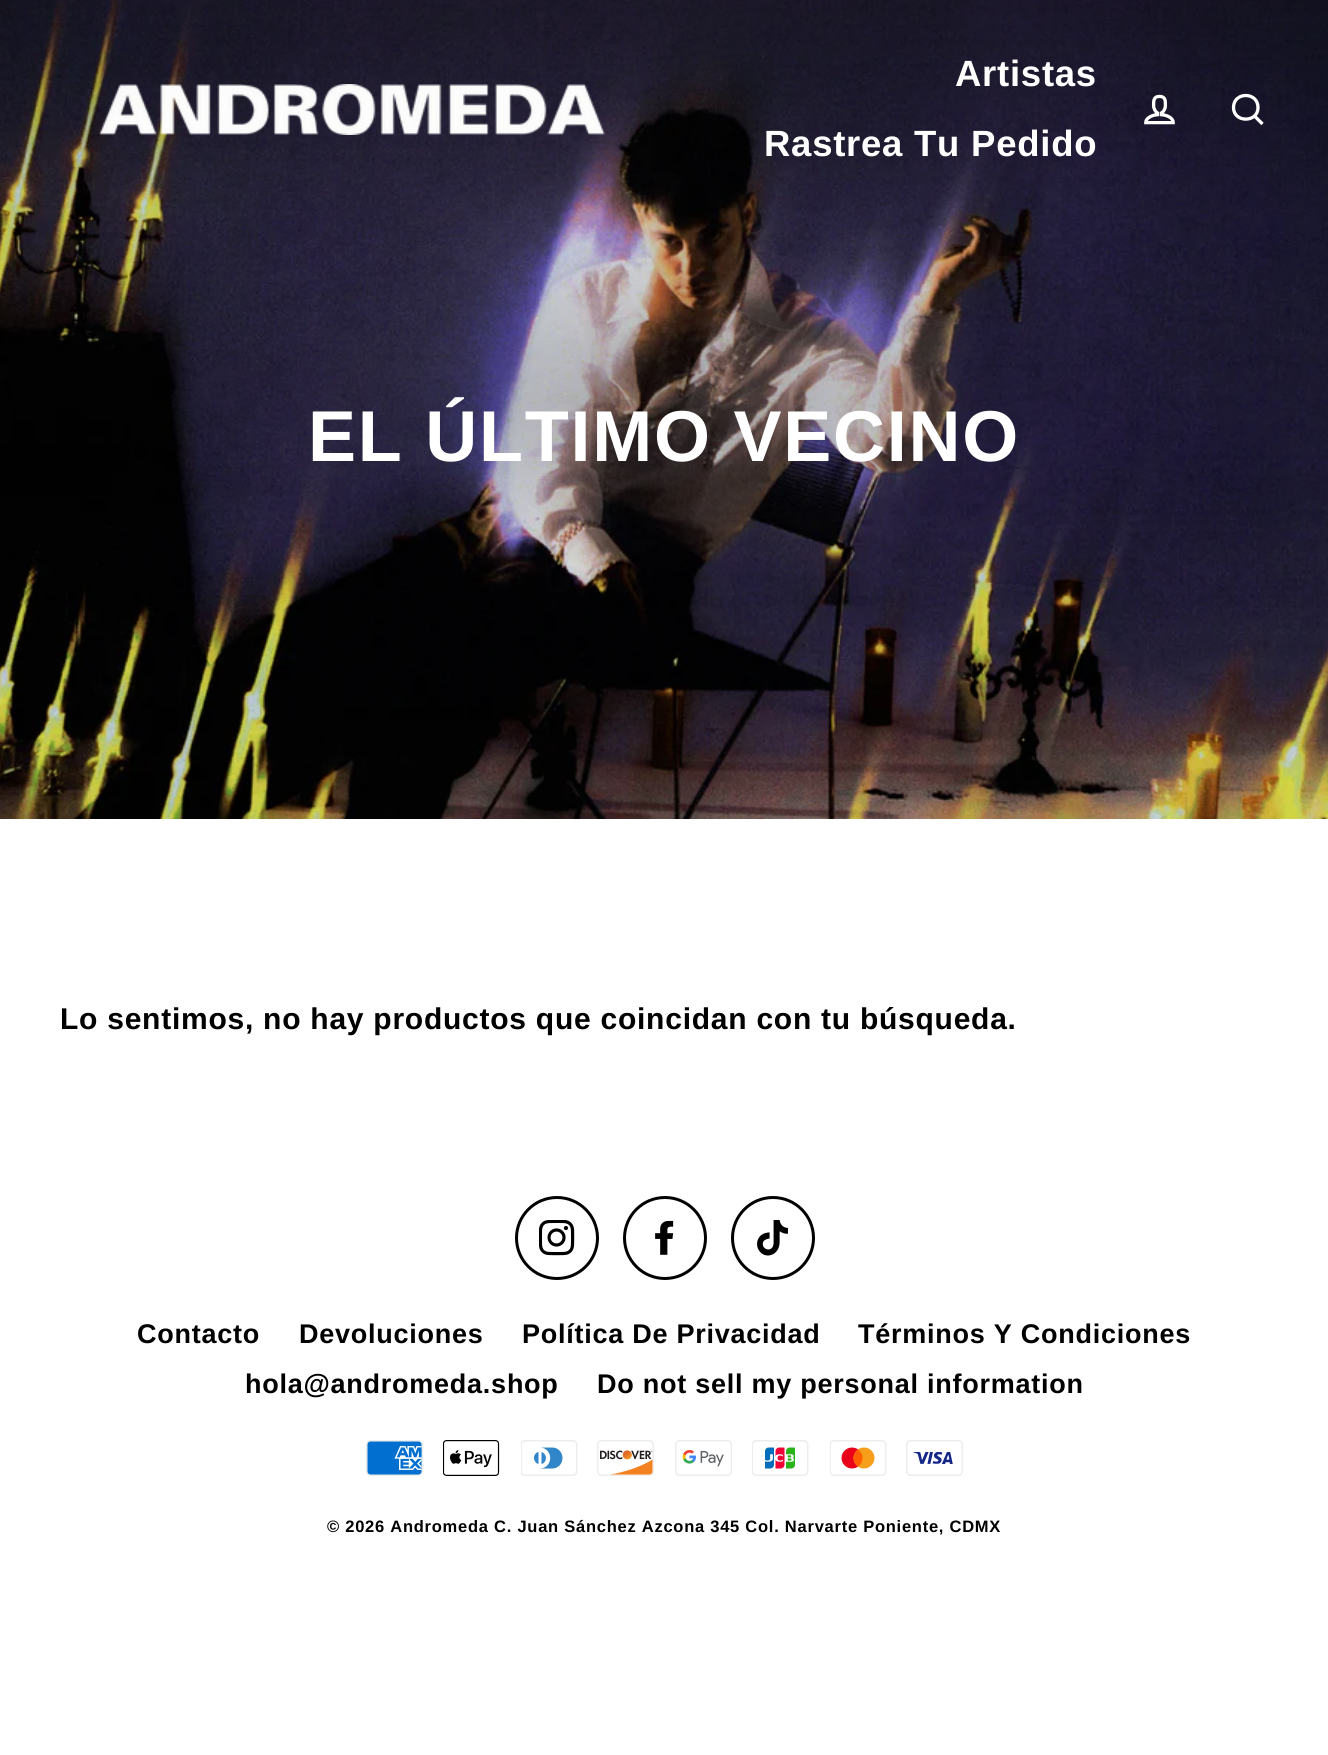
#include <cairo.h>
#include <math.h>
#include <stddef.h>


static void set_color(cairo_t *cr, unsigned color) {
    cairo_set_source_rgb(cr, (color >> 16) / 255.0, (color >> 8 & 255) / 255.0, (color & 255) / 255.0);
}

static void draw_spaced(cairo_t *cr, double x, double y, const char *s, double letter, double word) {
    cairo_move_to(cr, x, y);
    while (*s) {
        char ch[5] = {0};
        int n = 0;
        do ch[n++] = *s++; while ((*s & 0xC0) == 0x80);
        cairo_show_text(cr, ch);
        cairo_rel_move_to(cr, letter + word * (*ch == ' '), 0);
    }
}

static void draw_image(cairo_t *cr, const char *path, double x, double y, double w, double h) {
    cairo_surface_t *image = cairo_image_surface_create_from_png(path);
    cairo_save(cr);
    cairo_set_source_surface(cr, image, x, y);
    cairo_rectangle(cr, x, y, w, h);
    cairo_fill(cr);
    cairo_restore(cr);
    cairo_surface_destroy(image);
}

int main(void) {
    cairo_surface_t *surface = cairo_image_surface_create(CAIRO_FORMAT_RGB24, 1328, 1755);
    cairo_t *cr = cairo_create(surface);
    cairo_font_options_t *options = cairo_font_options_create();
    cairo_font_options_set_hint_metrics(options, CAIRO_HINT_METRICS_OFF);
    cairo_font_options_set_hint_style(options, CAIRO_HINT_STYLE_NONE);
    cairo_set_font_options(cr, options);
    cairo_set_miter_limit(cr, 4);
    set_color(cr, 0xFFFFFF);
    cairo_paint(cr);
    draw_image(cr, "assets/img3.png", 0, 0, 1328, 819);
    draw_image(cr, "assets/img1.png", 99, 84, 506, 51);
    cairo_select_font_face(cr, "Arimo", CAIRO_FONT_SLANT_NORMAL, CAIRO_FONT_WEIGHT_BOLD);
    cairo_set_font_size(cr, 36.5);
    set_color(cr, 0xFFFFFF);
    draw_spaced(cr, 955, 86, "Artistas", 0.75, 0);
    draw_spaced(cr, 764, 156, "Rastrea Tu Pedido", 0.75, 0);
    draw_image(cr, "assets/img2.png", 1144, 94, 31, 31);
    cairo_new_path(cr);
    cairo_move_to(cr, 1258, 107.5);
    cairo_curve_to(cr, 1258, 123, 1233.5, 123, 1233.5, 107.5);
    cairo_curve_to(cr, 1233.5, 91.5, 1258, 91.5, 1258, 107.5);
    cairo_close_path(cr);
    cairo_move_to(cr, 1262.5, 124);
    cairo_line_to(cr, 1254.5, 116);
    cairo_set_line_width(cr, 3.3);
    cairo_stroke(cr);
    cairo_set_font_size(cr, 72);
    draw_spaced(cr, 308, 461, "EL ÚLTIMO VECINO", 1.75, 0);
    cairo_set_font_size(cr, 30);
    set_color(cr, 0x000000);
    draw_spaced(cr, 60, 1029, "Lo sentimos, no hay productos que coincidan con tu búsqueda.", 0.75, 0);
    cairo_new_path(cr);
    cairo_arc(cr, 557, 1238, 40.5, 0, 2 * M_PI);
    cairo_set_line_width(cr, 3);
    cairo_stroke(cr);
    draw_image(cr, "assets/img4.png", 539, 1220, 36, 36);
    cairo_arc(cr, 665, 1238, 40.5, 0, 2 * M_PI);
    cairo_stroke(cr);
    draw_image(cr, "assets/img5.png", 655, 1220, 19, 35);
    cairo_arc(cr, 773, 1238, 40.5, 0, 2 * M_PI);
    cairo_stroke(cr);
    draw_image(cr, "assets/img6.png", 757, 1220, 31, 36);
    cairo_set_font_size(cr, 27);
    draw_spaced(cr, 137, 1343, "Contacto", 0.75, 0);
    draw_spaced(cr, 299, 1343, "Devoluciones", 0.75, 0);
    draw_spaced(cr, 522, 1343, "Política De Privacidad", 0.75, 0);
    draw_spaced(cr, 858, 1343, "Términos Y Condiciones", 0.75, 0);
    draw_spaced(cr, 245, 1393, "hola@andromeda.shop", 0.75, 0);
    draw_spaced(cr, 597, 1393, "Do not sell my personal information", 0.75, 0);
    draw_image(cr, "assets/img7.png", 366, 1440, 57, 36);
    draw_image(cr, "assets/img8.png", 443, 1440, 57, 36);
    draw_image(cr, "assets/img9.png", 521, 1440, 57, 36);
    draw_image(cr, "assets/img10.png", 597, 1440, 57, 36);
    draw_image(cr, "assets/img11.png", 675, 1440, 57, 36);
    draw_image(cr, "assets/img12.png", 752, 1440, 57, 36);
    draw_image(cr, "assets/img13.png", 830, 1440, 57, 36);
    draw_image(cr, "assets/img14.png", 906, 1440, 57, 36);
    cairo_set_font_size(cr, 16.5);
    draw_spaced(cr, 327, 1532, "© 2026 Andromeda C. Juan Sánchez Azcona 345 Col. Narvarte Poniente, CDMX", 0.75, 0);
    cairo_surface_write_to_png(surface, "output.png");
    cairo_font_options_destroy(options);
    cairo_destroy(cr);
    cairo_surface_destroy(surface);
    return 0;
}
